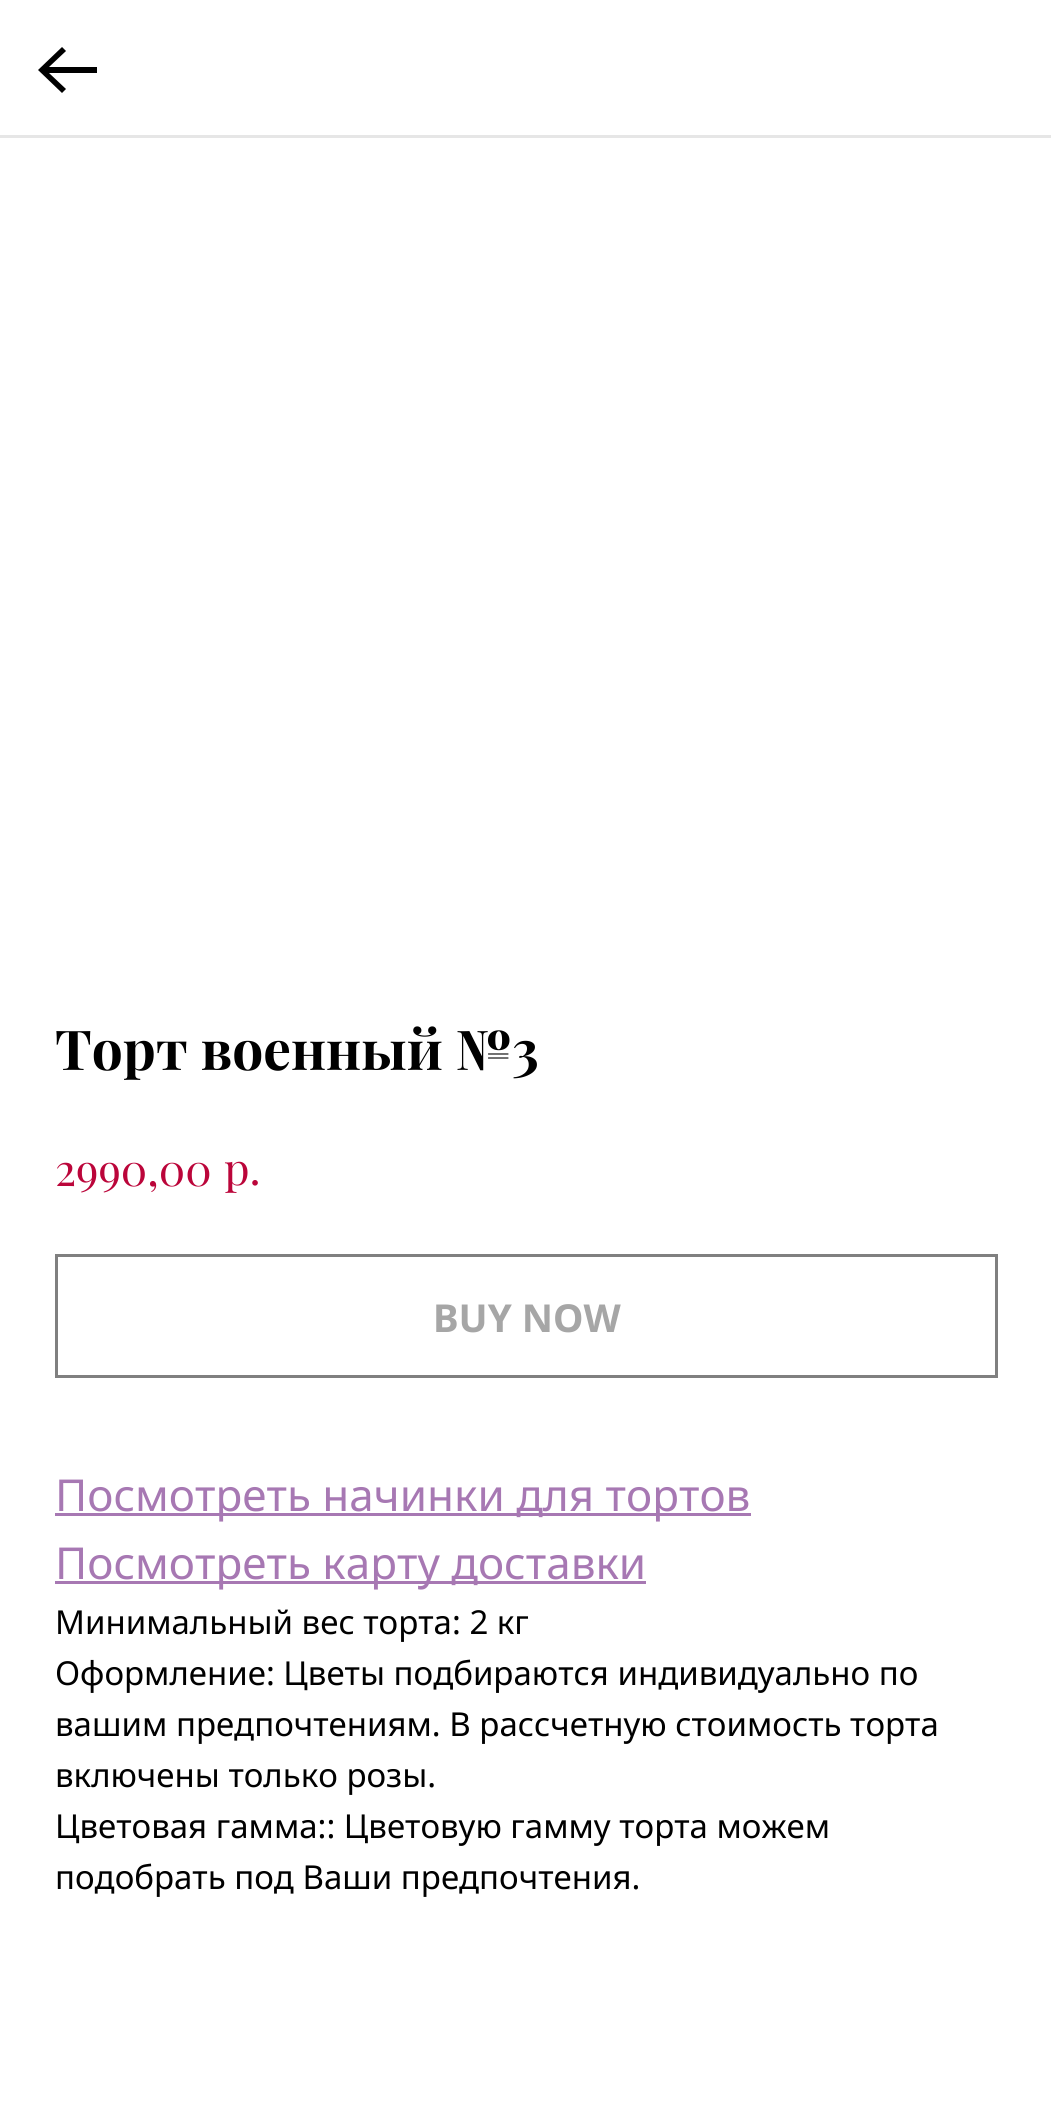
#include <cairo.h>
#include <math.h>
#include <stddef.h>


static void set_color(cairo_t *cr, unsigned color) {
    cairo_set_source_rgb(cr, (color >> 16) / 255.0, (color >> 8 & 255) / 255.0, (color & 255) / 255.0);
}

static void draw_text(cairo_t *cr, double x, double y, const char *s, const char *family, double size, int italic, int bold, unsigned color) {
    cairo_select_font_face(cr, family, italic ? CAIRO_FONT_SLANT_ITALIC : CAIRO_FONT_SLANT_NORMAL,
        bold ? CAIRO_FONT_WEIGHT_BOLD : CAIRO_FONT_WEIGHT_NORMAL);
    cairo_set_font_size(cr, size);
    set_color(cr, color);
    cairo_move_to(cr, x, y);
    cairo_show_text(cr, s);
}

static void fill_rect(cairo_t *cr, double x, double y, double w, double h, unsigned color) {
    set_color(cr, color);
    cairo_rectangle(cr, x, y, w, h);
    cairo_fill(cr);
}

int main(void) {
    cairo_surface_t *surface = cairo_image_surface_create(CAIRO_FORMAT_RGB24, 1051, 2112);
    cairo_t *cr = cairo_create(surface);
    cairo_font_options_t *options = cairo_font_options_create();
    cairo_font_options_set_hint_metrics(options, CAIRO_HINT_METRICS_OFF);
    cairo_font_options_set_hint_style(options, CAIRO_HINT_STYLE_NONE);
    cairo_set_font_options(cr, options);
    cairo_set_miter_limit(cr, 4);
    set_color(cr, 0xFFFFFF);
    cairo_paint(cr);
    fill_rect(cr, 0, 135, 1051, 3, 0xE6E6E6);
    set_color(cr, 0x000000);
    cairo_new_path(cr);
    cairo_move_to(cr, 62, 47);
    cairo_line_to(cr, 66, 51);
    cairo_line_to(cr, 49, 67);
    cairo_line_to(cr, 97, 67);
    cairo_line_to(cr, 97, 73);
    cairo_line_to(cr, 49, 73);
    cairo_line_to(cr, 66, 89);
    cairo_line_to(cr, 62, 93);
    cairo_line_to(cr, 38, 70);
    cairo_close_path(cr);
    cairo_fill(cr);
    draw_text(cr, 55, 1070, "Торт военный №3", "Playfair Display", 55, 0, 1, 0x000000);
    draw_text(cr, 55, 1186, "2990,00", "Playfair Display", 44, 0, 0, 0xBB053A);
    draw_text(cr, 224, 1185, "р.", "Playfair Display", 44, 0, 0, 0xBB053A);
    cairo_rectangle(cr, 56.5, 1255.5, 940, 121);
    set_color(cr, 0x808080);
    cairo_set_line_width(cr, 3);
    cairo_stroke(cr);
    draw_text(cr, 433, 1332, "BUY NOW", "Noto Sans", 38.5, 0, 1, 0xA6A6A6);
    fill_rect(cr, 55, 1513, 696, 3, 0xA778B3);
    draw_text(cr, 55, 1511, "Посмотреть начинки для тортов", "Noto Sans", 44, 0, 0, 0xA778B3);
    fill_rect(cr, 55, 1581, 591, 3, 0xA778B3);
    draw_text(cr, 55, 1579, "Посмотреть карту доставки", "Noto Sans", 44, 0, 0, 0xA778B3);
    draw_text(cr, 55, 1634, "Минимальный вес торта: 2 кг", "Noto Sans", 33, 0, 0, 0x000000);
    draw_text(cr, 55, 1685, "Оформление: Цветы подбираются индивидуально по", "Noto Sans", 33, 0, 0, 0x000000);
    draw_text(cr, 55, 1736, "вашим предпочтениям. В рассчетную стоимость торта", "Noto Sans", 33, 0, 0, 0x000000);
    draw_text(cr, 55, 1787, "включены только розы.", "Noto Sans", 33, 0, 0, 0x000000);
    draw_text(cr, 55, 1838, "Цветовая гамма:: Цветовую гамму торта можем", "Noto Sans", 33, 0, 0, 0x000000);
    draw_text(cr, 55, 1889, "подобрать под Ваши предпочтения.", "Noto Sans", 33, 0, 0, 0x000000);
    cairo_surface_write_to_png(surface, "output.png");
    cairo_font_options_destroy(options);
    cairo_destroy(cr);
    cairo_surface_destroy(surface);
    return 0;
}
